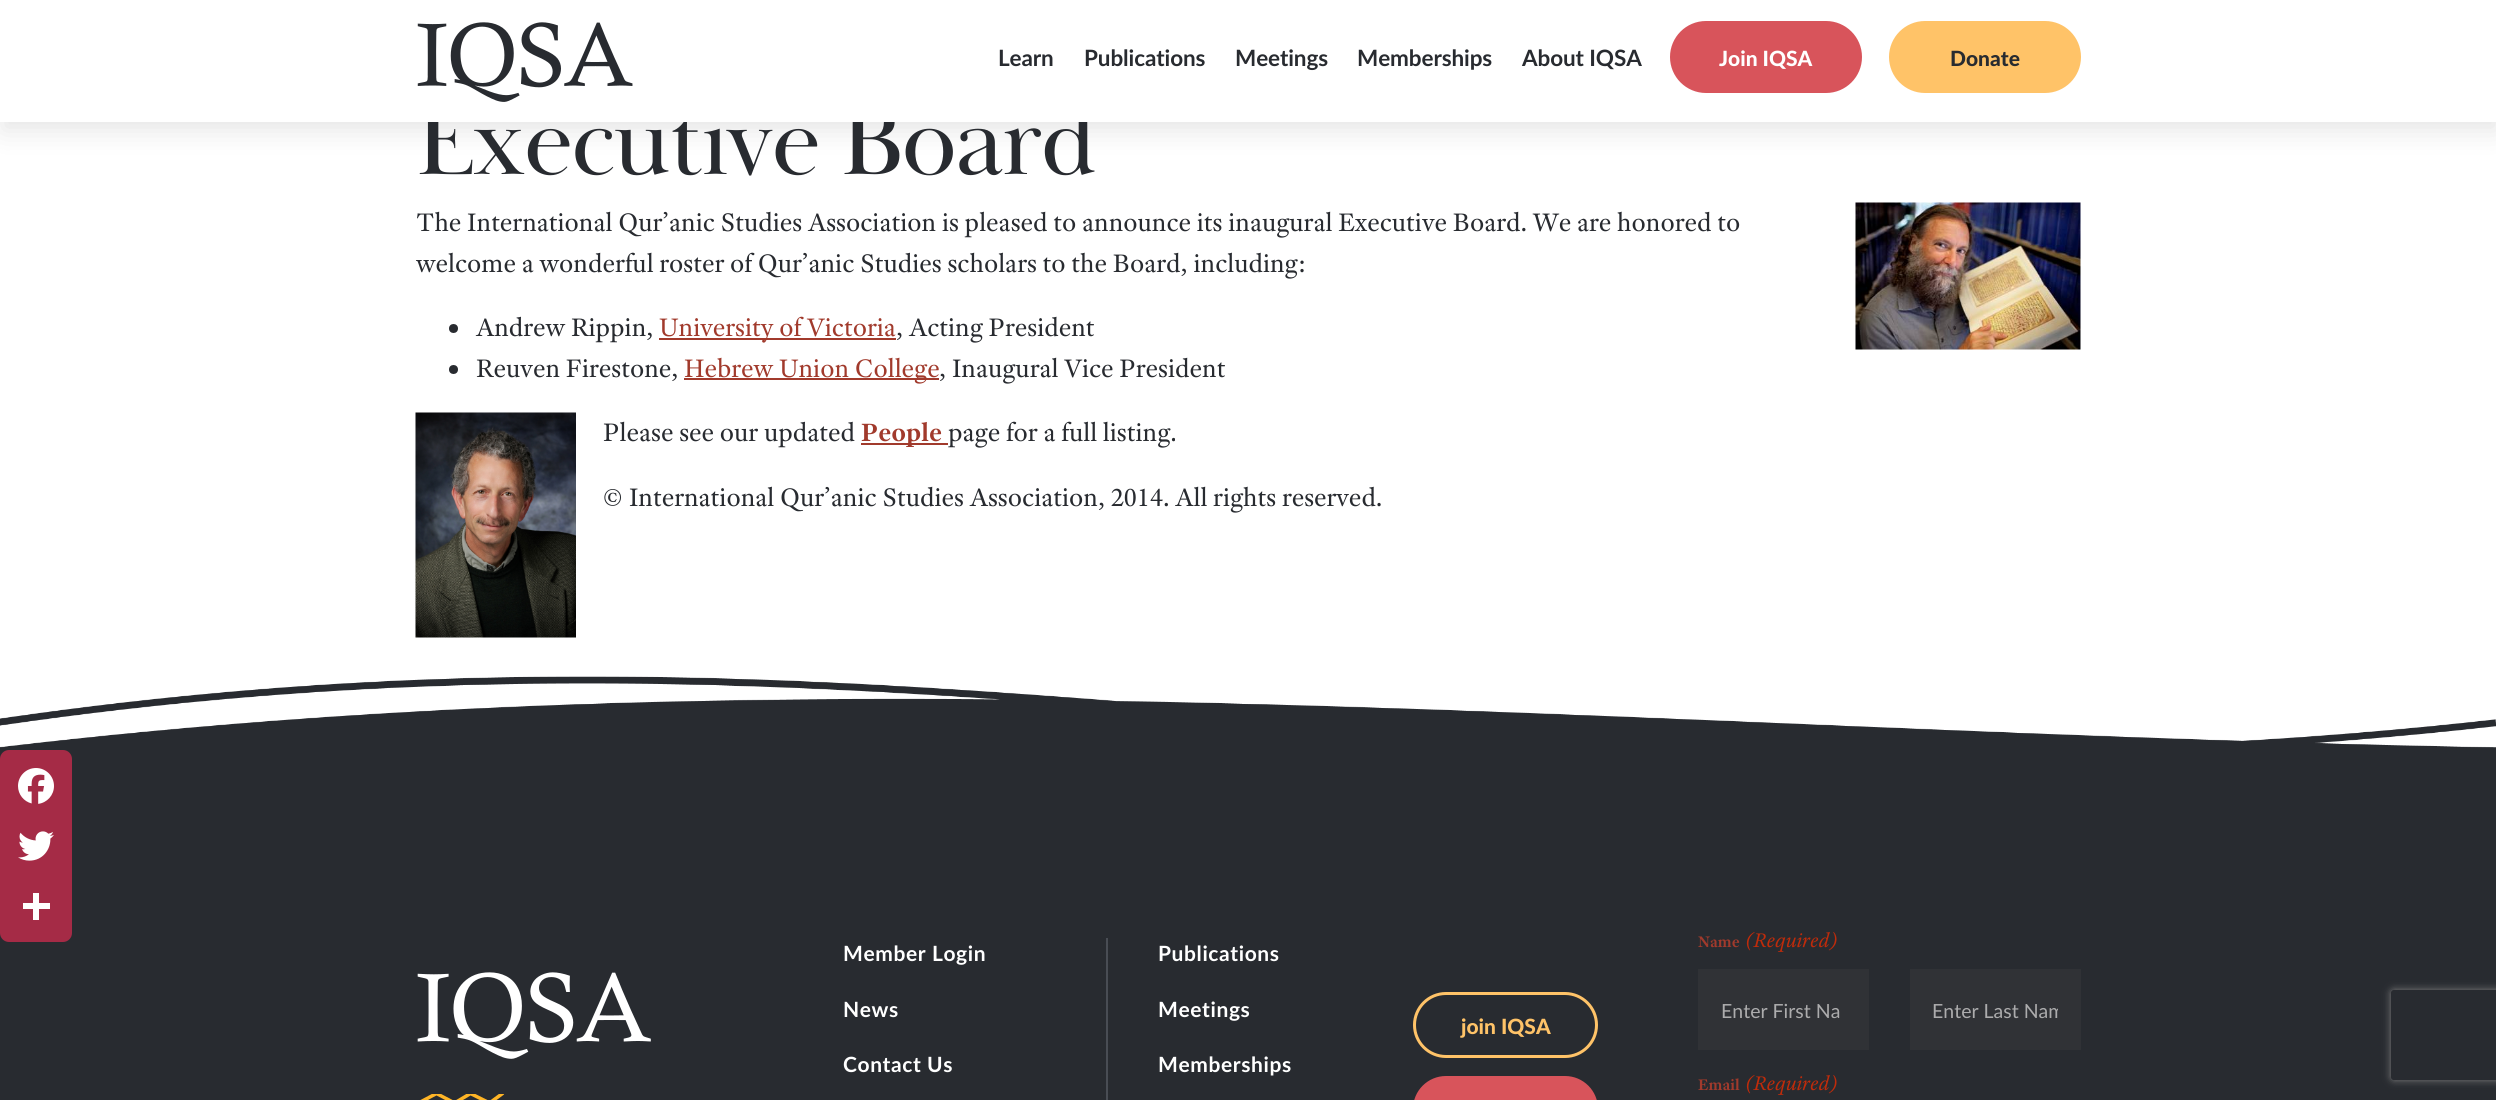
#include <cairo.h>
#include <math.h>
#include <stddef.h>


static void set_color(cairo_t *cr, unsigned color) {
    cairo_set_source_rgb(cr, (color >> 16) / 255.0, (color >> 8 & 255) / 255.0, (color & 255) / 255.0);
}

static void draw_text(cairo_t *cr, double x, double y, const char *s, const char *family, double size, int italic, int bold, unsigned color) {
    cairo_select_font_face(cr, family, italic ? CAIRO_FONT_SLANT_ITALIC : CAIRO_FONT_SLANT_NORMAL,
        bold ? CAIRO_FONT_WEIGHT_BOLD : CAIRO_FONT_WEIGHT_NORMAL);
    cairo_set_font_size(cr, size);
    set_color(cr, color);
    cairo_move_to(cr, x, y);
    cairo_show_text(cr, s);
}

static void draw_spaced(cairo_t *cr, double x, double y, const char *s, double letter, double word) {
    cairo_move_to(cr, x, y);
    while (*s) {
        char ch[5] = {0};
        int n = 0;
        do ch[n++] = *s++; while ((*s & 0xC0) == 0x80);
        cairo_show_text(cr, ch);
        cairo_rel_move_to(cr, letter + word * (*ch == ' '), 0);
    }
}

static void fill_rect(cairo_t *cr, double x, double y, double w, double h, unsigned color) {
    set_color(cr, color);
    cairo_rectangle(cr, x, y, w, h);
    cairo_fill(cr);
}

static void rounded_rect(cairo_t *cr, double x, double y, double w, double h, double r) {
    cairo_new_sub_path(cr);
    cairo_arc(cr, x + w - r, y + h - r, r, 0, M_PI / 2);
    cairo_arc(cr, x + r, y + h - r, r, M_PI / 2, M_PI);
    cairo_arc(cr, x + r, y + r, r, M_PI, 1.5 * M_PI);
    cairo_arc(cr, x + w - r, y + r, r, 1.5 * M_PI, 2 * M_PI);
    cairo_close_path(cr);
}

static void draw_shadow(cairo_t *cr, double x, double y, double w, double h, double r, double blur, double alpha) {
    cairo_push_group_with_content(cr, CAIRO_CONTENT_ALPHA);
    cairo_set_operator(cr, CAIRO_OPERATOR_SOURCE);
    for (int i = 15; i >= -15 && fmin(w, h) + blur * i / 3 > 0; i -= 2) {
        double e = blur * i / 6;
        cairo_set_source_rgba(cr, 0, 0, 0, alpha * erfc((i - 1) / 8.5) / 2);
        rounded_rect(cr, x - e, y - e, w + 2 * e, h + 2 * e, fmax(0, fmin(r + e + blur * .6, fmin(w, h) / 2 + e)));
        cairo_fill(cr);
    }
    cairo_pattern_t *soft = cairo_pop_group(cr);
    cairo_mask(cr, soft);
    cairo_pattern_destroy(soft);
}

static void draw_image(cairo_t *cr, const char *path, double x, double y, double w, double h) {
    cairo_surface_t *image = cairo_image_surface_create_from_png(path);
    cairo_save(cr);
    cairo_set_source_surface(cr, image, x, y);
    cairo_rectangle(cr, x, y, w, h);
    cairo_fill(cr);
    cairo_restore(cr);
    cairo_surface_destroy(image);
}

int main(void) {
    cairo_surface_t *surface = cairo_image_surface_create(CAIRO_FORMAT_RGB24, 2496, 1100);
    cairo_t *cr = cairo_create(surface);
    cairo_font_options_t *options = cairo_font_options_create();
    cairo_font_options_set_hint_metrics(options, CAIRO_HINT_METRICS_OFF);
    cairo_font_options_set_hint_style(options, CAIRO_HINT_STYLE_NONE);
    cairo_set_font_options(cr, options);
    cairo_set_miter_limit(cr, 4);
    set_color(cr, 0xFFFFFF);
    cairo_paint(cr);
    set_color(cr, 0x000000);
    draw_shadow(cr, 2, 9, 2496, 122, 0, 13, 0.1);
    cairo_select_font_face(cr, "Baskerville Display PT", CAIRO_FONT_SLANT_NORMAL, CAIRO_FONT_WEIGHT_NORMAL);
    cairo_set_font_size(cr, 102);
    set_color(cr, 0x282B30);
    draw_spaced(cr, 416, 174, "Executive Board", -2, 0);
    fill_rect(cr, 0, 0, 2496, 122, 0xFFFFFF);
    draw_image(cr, "assets/img1.png", 417, 22, 216, 80);
    cairo_select_font_face(cr, "Lato", CAIRO_FONT_SLANT_NORMAL, CAIRO_FONT_WEIGHT_BOLD);
    cairo_set_font_size(cr, 22.5);
    set_color(cr, 0x282B30);
    draw_spaced(cr, 998, 66, "Learn", -0.1, 0);
    draw_spaced(cr, 1084, 66, "Publications", -0.1, 0);
    draw_spaced(cr, 1235, 66, "Meetings", -0.1, 0);
    draw_spaced(cr, 1357, 66, "Memberships", -0.1, 0);
    draw_spaced(cr, 1522, 66, "About IQSA", -0.1, 0);
    set_color(cr, 0xD8545B);
    rounded_rect(cr, 1671, 22, 190, 70, 35);
    cairo_fill_preserve(cr);
    cairo_stroke(cr);
    draw_text(cr, 1719, 66, "Join IQSA", "Lato Black", 21, 0, 0, 0xFFFFFF);
    set_color(cr, 0xFFC368);
    rounded_rect(cr, 1890, 22, 190, 70, 35);
    cairo_fill_preserve(cr);
    cairo_stroke(cr);
    draw_text(cr, 1950, 66, "Donate", "Lato Black", 21, 0, 0, 0x282B30);
    draw_text(cr, 416, 231, "The International Qur’anic Studies Association is pleased to announce its inaugural Executive Board. We are honored to", "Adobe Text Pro", 27, 0, 0, 0x282B30);
    draw_image(cr, "assets/img2.png", 1855, 202, 226, 148);
    draw_text(cr, 416, 272, "welcome a wonderful roster of Qur’anic Studies scholars to the Board, including:", "Adobe Text Pro", 27, 0, 0, 0x282B30);
    cairo_new_path(cr);
    cairo_arc(cr, 453.5, 328.5, 4.5, 0, 2 * M_PI);
    cairo_fill(cr);
    draw_text(cr, 476, 336, "Andrew Rippin,", "Adobe Text Pro", 27, 0, 0, 0x282B30);
    fill_rect(cr, 659, 338, 237, 2, 0xA13A2C);
    draw_text(cr, 659, 336, "University of Victoria", "Adobe Text Pro", 27, 0, 0, 0xA13A2C);
    draw_text(cr, 896, 336, ", Acting President", "Adobe Text Pro", 27, 0, 0, 0x282B30);
    cairo_new_path(cr);
    cairo_arc(cr, 453.5, 369.5, 4.5, 0, 2 * M_PI);
    cairo_fill(cr);
    draw_text(cr, 476, 377, "Reuven Firestone,", "Adobe Text Pro", 27, 0, 0, 0x282B30);
    fill_rect(cr, 684, 378, 255, 2, 0xA13A2C);
    draw_text(cr, 684, 377, "Hebrew Union College", "Adobe Text Pro", 27, 0, 0, 0xA13A2C);
    draw_text(cr, 939, 377, ", Inaugural Vice President", "Adobe Text Pro", 27, 0, 0, 0x282B30);
    draw_image(cr, "assets/img3.png", 415, 412, 161, 226);
    draw_text(cr, 603, 441, "Please see our updated", "Adobe Text Pro", 27, 0, 0, 0x282B30);
    fill_rect(cr, 861, 443, 87, 2, 0xA13A2C);
    draw_text(cr, 861, 441, "People", "Adobe Text Pro", 27, 0, 1, 0xA13A2C);
    draw_text(cr, 948, 441, "page for a full listing.", "Adobe Text Pro", 27, 0, 0, 0x282B30);
    draw_text(cr, 603, 506, "© International Qur’anic Studies Association, 2014. All rights reserved.", "Adobe Text Pro", 27, 0, 0, 0x282B30);
    draw_image(cr, "assets/img6.png", 0, 676, 2496, 98);
    fill_rect(cr, 0, 774, 2496, 326, 0x282B30);
    set_color(cr, 0xA52B46);
    rounded_rect(cr, 0, 750, 72, 192, 9);
    cairo_fill(cr);
    draw_image(cr, "assets/img4.png", 18, 768, 36, 36);
    draw_image(cr, "assets/img5.png", 18, 831, 36, 30);
    fill_rect(cr, 33, 893, 6, 27, 0xFFFFFF);
    fill_rect(cr, 23, 903, 27, 6, 0xFFFFFF);
    draw_image(cr, "assets/img7.png", 417, 972, 234, 87);
    cairo_save(cr);
    cairo_rectangle(cr, 416, 1094, 90, 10);
    cairo_clip(cr);
    cairo_new_path(cr);
    cairo_move_to(cr, 418.5, 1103);
    cairo_line_to(cr, 436.5, 1093.5);
    cairo_line_to(cr, 454.5, 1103);
    cairo_line_to(cr, 470.5, 1093.5);
    cairo_line_to(cr, 489.5, 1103);
    cairo_line_to(cr, 502.5, 1093.5);
    set_color(cr, 0xFFB526);
    cairo_set_line_width(cr, 3.5);
    cairo_set_line_cap(cr, CAIRO_LINE_CAP_ROUND);
    cairo_stroke(cr);
    cairo_restore(cr);
    cairo_select_font_face(cr, "Lato", CAIRO_FONT_SLANT_NORMAL, CAIRO_FONT_WEIGHT_BOLD);
    cairo_set_font_size(cr, 21);
    draw_spaced(cr, 843, 961, "Member Login", 0.6, 0);
    fill_rect(cr, 1106, 938, 2, 162, 0x494D54);
    set_color(cr, 0xFFFFFF);
    draw_spaced(cr, 1158, 961, "Publications", 0.6, 0);
    draw_spaced(cr, 843, 1017, "News", 0.6, 0);
    draw_spaced(cr, 1158, 1017, "Meetings", 0.6, 0);
    draw_spaced(cr, 843, 1072, "Contact Us", 0.6, 0);
    draw_spaced(cr, 1158, 1072, "Memberships", 0.6, 0);
    rounded_rect(cr, 1414.5, 993.5, 182, 63, 31.5);
    set_color(cr, 0xFFC368);
    cairo_set_line_width(cr, 3);
    cairo_stroke(cr);
    draw_text(cr, 1461, 1034, "join IQSA", "Lato Black", 21, 0, 0, 0xFFC368);
    set_color(cr, 0xD8545B);
    rounded_rect(cr, 1414.5, 1077.5, 182, 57, 31.5);
    cairo_fill_preserve(cr);
    cairo_stroke(cr);
    draw_text(cr, 1698, 947, "Name", "Adobe Text Pro", 16.5, 0, 1, 0xA13A2C);
    draw_text(cr, 1745, 947, "(Required)", "Adobe Text Pro", 21, 1, 0, 0xC02B0A);
    fill_rect(cr, 1698, 969, 171, 81, 0x303236);
    draw_text(cr, 1721, 1018, "Enter First Na", "Lato", 19.5, 0, 0, 0xACACAD);
    fill_rect(cr, 1910, 969, 171, 81, 0x303236);
    cairo_save(cr);
    cairo_rectangle(cr, 1932, 996, 126, 29);
    cairo_clip(cr);
    draw_text(cr, 1932, 1018, "Enter Last Nam", "Lato", 19.5, 0, 0, 0xACACAD);
    cairo_restore(cr);
    cairo_save(cr);
    cairo_set_fill_rule(cr, CAIRO_FILL_RULE_EVEN_ODD);
    cairo_new_path(cr);
    cairo_move_to(cr, 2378, 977);
    cairo_line_to(cr, 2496, 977);
    cairo_line_to(cr, 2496, 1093);
    cairo_line_to(cr, 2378, 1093);
    cairo_close_path(cr);
    cairo_move_to(cr, 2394, 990);
    cairo_line_to(cr, 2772, 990);
    cairo_curve_to(cr, 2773.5, 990, 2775, 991.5, 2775, 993);
    cairo_line_to(cr, 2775, 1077);
    cairo_curve_to(cr, 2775, 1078.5, 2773.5, 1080, 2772, 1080);
    cairo_line_to(cr, 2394, 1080);
    cairo_curve_to(cr, 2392.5, 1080, 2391, 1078.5, 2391, 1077);
    cairo_line_to(cr, 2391, 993);
    cairo_curve_to(cr, 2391, 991.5, 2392.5, 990, 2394, 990);
    cairo_close_path(cr);
    cairo_clip(cr);
    set_color(cr, 0x808080);
    draw_shadow(cr, 2391, 990, 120, 90, 3, 4, 1);
    cairo_restore(cr);
    draw_text(cr, 1698, 1090, "Email", "Adobe Text Pro", 16.5, 0, 1, 0xA13A2C);
    draw_text(cr, 1745, 1090, "(Required)", "Adobe Text Pro", 21, 1, 0, 0xC02B0A);
    cairo_surface_write_to_png(surface, "output.png");
    cairo_font_options_destroy(options);
    cairo_destroy(cr);
    cairo_surface_destroy(surface);
    return 0;
}
